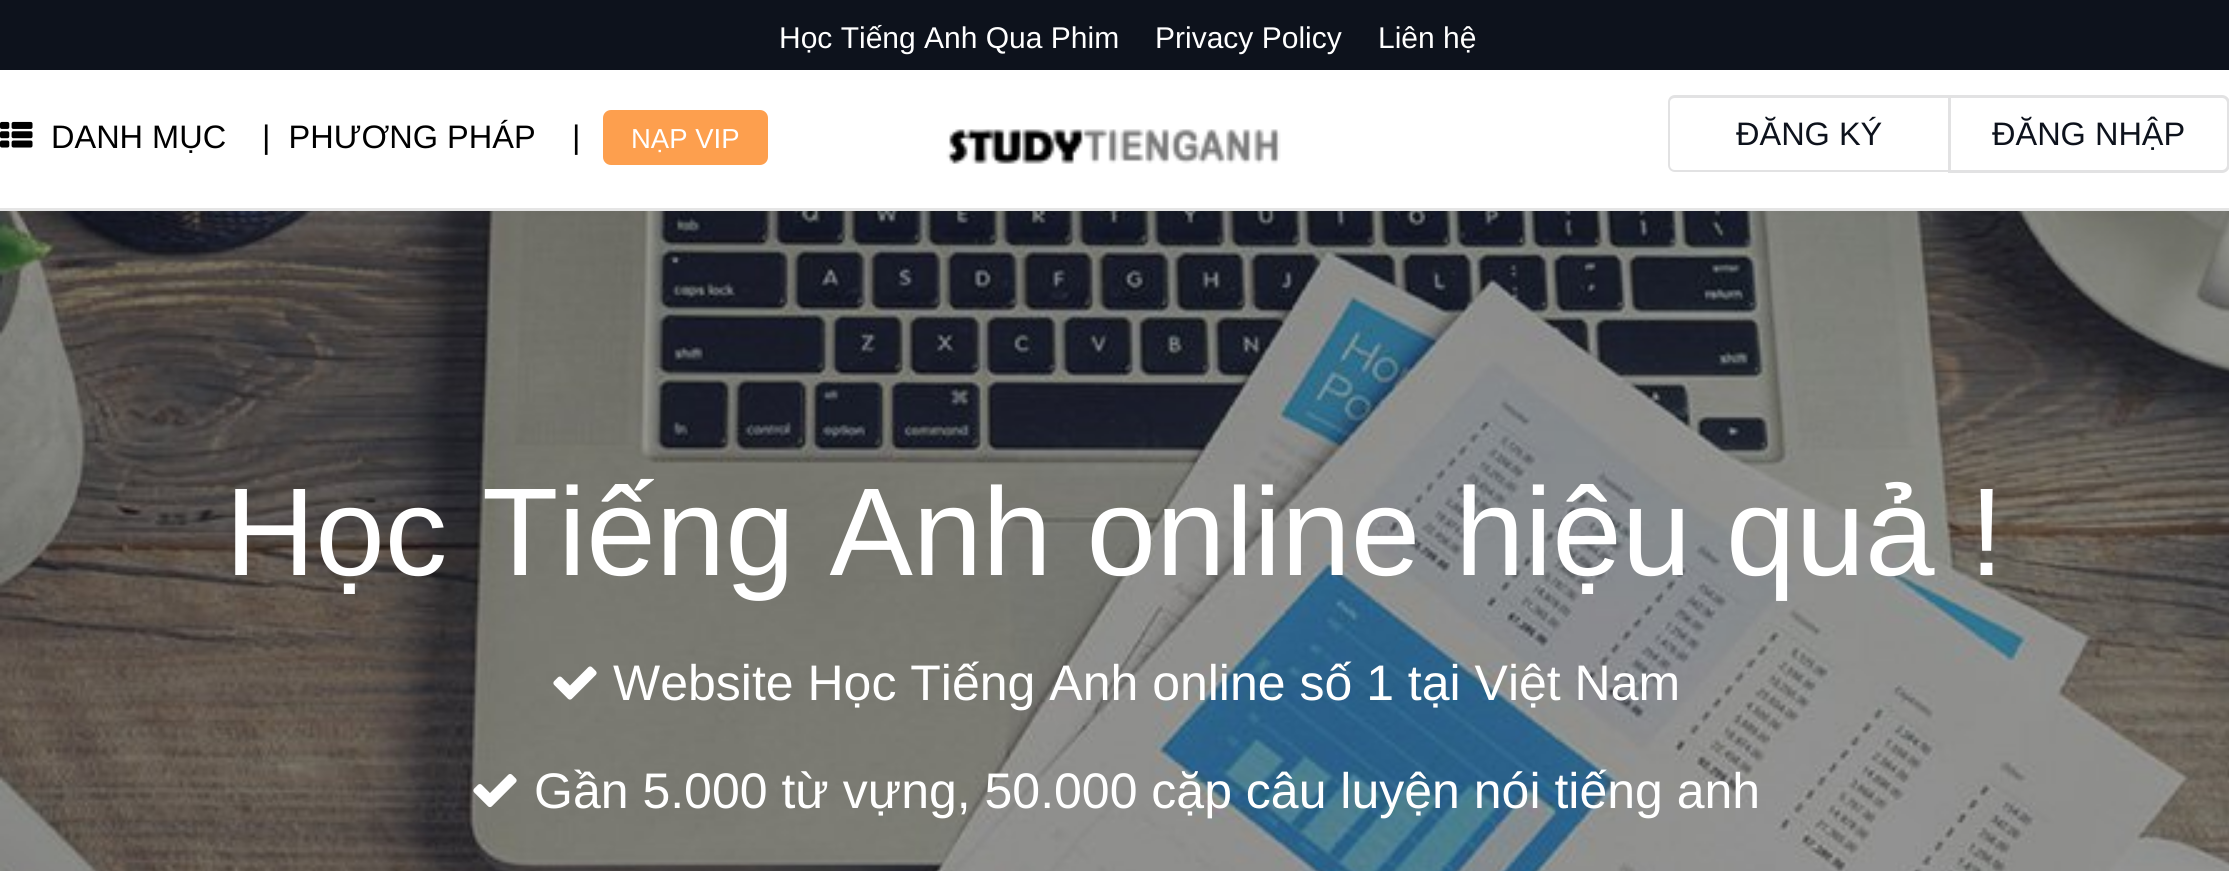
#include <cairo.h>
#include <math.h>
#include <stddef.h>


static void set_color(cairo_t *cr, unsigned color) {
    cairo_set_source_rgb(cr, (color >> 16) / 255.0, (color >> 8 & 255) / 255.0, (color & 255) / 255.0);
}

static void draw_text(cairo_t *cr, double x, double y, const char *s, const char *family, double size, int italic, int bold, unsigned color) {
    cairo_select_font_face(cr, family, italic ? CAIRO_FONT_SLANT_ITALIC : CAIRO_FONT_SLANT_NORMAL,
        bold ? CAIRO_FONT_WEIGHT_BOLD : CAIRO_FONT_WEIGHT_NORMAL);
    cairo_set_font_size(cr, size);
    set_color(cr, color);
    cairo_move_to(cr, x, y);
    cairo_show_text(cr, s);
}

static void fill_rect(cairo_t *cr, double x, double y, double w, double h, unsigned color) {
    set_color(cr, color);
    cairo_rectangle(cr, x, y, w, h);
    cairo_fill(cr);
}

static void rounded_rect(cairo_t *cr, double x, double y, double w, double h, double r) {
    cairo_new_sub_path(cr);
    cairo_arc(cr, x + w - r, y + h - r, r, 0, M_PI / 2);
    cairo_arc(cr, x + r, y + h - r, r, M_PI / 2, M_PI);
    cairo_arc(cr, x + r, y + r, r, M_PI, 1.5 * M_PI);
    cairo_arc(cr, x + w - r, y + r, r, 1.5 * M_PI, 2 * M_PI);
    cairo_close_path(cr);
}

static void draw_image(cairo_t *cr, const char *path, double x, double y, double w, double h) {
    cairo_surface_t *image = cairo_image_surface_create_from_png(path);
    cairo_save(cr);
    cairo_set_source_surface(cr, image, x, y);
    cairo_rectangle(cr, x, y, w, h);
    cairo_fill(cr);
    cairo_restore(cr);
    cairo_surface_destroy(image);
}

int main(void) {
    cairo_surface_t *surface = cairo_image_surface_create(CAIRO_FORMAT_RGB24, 2229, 871);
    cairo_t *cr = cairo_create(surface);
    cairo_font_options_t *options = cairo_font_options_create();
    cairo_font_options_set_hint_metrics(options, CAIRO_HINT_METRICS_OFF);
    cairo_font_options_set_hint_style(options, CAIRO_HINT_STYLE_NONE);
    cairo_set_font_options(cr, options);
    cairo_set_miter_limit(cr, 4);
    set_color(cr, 0xFFFFFF);
    cairo_paint(cr);
    fill_rect(cr, 0, 0, 2229, 70, 0x0D121C);
    draw_text(cr, 779, 48, "Học Tiếng Anh Qua Phim", "Liberation Sans", 30, 0, 0, 0xFFFFFF);
    draw_text(cr, 1155, 48, "Privacy Policy", "Liberation Sans", 30, 0, 0, 0xFFFFFF);
    draw_text(cr, 1378, 48, "Liên hệ", "Liberation Sans", 30, 0, 0, 0xFFFFFF);
    fill_rect(cr, 0, 208, 2229, 3, 0xE5E5E5);
    draw_image(cr, "assets/img1.png", 0, 121, 33, 27);
    draw_text(cr, 51, 148, "DANH MỤC", "Liberation Sans", 32.5, 0, 0, 0x000000);
    draw_text(cr, 262, 148, "|  PHƯƠNG PHÁP", "Liberation Sans", 32.5, 0, 0, 0x000000);
    draw_text(cr, 572, 148, "|", "Liberation Sans", 32.5, 0, 0, 0x000000);
    set_color(cr, 0xFD9F4E);
    rounded_rect(cr, 603, 110, 165, 55, 8);
    cairo_fill(cr);
    draw_text(cr, 631, 148, "NẠP VIP", "Liberation Sans", 27.5, 0, 0, 0xFFFFFF);
    draw_image(cr, "assets/img2.png", 946, 129, 335, 35);
    set_color(cr, 0xE2E2E3);
    cairo_set_fill_rule(cr, CAIRO_FILL_RULE_EVEN_ODD);
    cairo_new_path(cr);
    cairo_move_to(cr, 1675, 95);
    cairo_line_to(cr, 1948, 95);
    cairo_line_to(cr, 1948, 172);
    cairo_line_to(cr, 1675, 172);
    cairo_curve_to(cr, 1671, 172, 1668, 169, 1668, 165);
    cairo_line_to(cr, 1668, 102);
    cairo_curve_to(cr, 1668, 98, 1671, 95, 1675, 95);
    cairo_close_path(cr);
    cairo_move_to(cr, 1675, 98);
    cairo_line_to(cr, 1948, 98);
    cairo_line_to(cr, 1948, 170);
    cairo_line_to(cr, 1675, 170);
    cairo_curve_to(cr, 1672, 170, 1670, 168, 1670, 165);
    cairo_line_to(cr, 1670, 102);
    cairo_curve_to(cr, 1670, 100, 1672, 98, 1675, 98);
    cairo_close_path(cr);
    cairo_fill(cr);
    draw_text(cr, 1736, 145, "ĐĂNG KÝ", "Liberation Sans", 32.5, 0, 0, 0x0D121C);
    cairo_new_path(cr);
    cairo_move_to(cr, 1949.5, 96.5);
    cairo_line_to(cr, 2222, 96.5);
    cairo_curve_to(cr, 2225.5, 96.5, 2228.5, 99.5, 2228.5, 103);
    cairo_line_to(cr, 2228.5, 165);
    cairo_curve_to(cr, 2228.5, 168.5, 2225.5, 171.5, 2222, 171.5);
    cairo_line_to(cr, 1949.5, 171.5);
    cairo_close_path(cr);
    set_color(cr, 0xE2E2E3);
    cairo_set_line_width(cr, 3);
    cairo_stroke(cr);
    draw_text(cr, 1992, 145, "ĐĂNG NHẬP", "Liberation Sans", 32.5, 0, 0, 0x0D121C);
    draw_image(cr, "assets/img3.png", 0, 211, 2229, 660);
    draw_text(cr, 225, 575, "Học Tiếng Anh online hiệu quả !", "Liberation Sans", 125, 0, 0, 0xFFFFFF);
    draw_image(cr, "assets/img4.png", 553, 666, 44, 34);
    draw_text(cr, 613, 700, "Website Học Tiếng Anh online số 1 tại Việt Nam", "Liberation Sans", 50, 0, 0, 0xFFFFFF);
    draw_image(cr, "assets/img5.png", 473, 774, 44, 34);
    draw_text(cr, 534, 808, "Gần 5.000 từ vựng, 50.000 cặp câu luyện nói tiếng anh", "Liberation Sans", 50, 0, 0, 0xFFFFFF);
    cairo_surface_write_to_png(surface, "output.png");
    cairo_font_options_destroy(options);
    cairo_destroy(cr);
    cairo_surface_destroy(surface);
    return 0;
}
